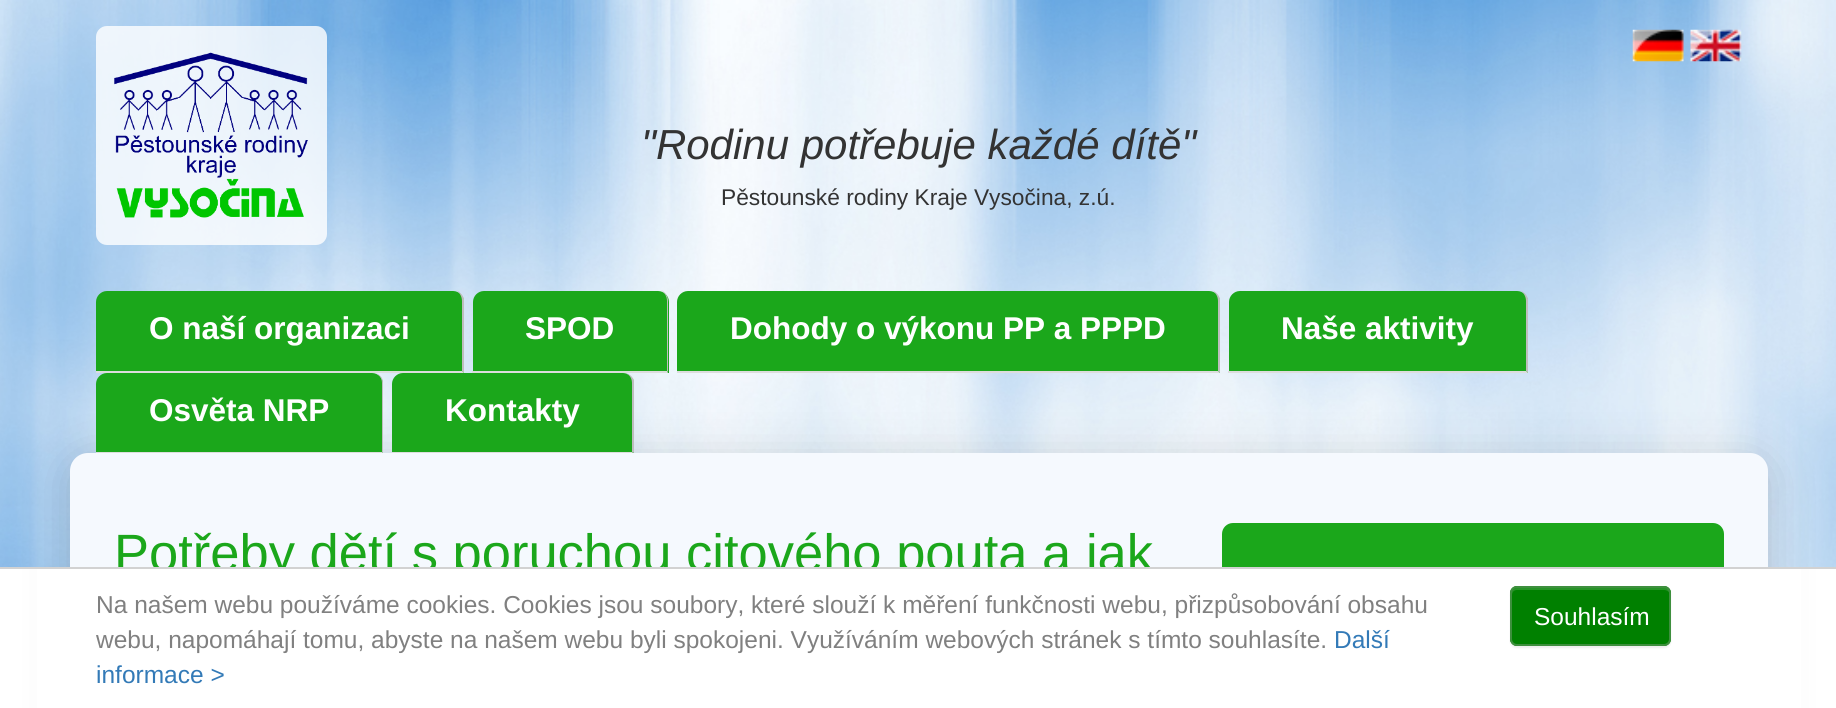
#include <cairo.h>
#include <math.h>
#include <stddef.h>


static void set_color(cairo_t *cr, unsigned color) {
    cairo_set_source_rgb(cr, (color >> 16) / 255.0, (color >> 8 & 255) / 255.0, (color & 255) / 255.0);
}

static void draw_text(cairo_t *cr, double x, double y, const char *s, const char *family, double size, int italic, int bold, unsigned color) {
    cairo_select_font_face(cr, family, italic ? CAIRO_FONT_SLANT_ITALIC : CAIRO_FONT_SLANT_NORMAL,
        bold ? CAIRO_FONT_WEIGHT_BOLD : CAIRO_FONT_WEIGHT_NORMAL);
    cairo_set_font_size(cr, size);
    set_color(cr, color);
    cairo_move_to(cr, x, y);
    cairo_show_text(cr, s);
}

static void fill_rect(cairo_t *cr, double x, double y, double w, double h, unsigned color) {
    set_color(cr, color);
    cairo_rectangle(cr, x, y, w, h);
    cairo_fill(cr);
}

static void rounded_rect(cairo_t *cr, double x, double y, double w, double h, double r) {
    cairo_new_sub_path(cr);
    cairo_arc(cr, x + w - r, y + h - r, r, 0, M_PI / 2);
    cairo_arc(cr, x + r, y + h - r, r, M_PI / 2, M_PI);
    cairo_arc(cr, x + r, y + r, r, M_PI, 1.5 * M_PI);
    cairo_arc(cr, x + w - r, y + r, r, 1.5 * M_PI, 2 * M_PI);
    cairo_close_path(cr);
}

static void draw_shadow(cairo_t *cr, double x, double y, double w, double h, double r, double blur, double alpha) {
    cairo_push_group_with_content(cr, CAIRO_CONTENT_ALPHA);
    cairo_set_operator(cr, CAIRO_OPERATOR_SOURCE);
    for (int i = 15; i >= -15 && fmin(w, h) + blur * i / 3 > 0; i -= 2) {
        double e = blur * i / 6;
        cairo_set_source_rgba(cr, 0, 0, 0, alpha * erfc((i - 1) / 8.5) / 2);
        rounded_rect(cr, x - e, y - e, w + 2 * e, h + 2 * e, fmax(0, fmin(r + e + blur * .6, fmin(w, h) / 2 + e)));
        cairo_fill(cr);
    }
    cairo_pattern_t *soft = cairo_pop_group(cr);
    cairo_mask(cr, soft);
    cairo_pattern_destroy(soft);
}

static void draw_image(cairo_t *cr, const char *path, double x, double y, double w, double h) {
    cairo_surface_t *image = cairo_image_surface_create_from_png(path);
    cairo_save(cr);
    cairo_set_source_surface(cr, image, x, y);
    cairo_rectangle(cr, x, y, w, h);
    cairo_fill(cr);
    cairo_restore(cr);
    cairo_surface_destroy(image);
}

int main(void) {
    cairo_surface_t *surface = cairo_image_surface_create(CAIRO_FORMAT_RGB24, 1836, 708);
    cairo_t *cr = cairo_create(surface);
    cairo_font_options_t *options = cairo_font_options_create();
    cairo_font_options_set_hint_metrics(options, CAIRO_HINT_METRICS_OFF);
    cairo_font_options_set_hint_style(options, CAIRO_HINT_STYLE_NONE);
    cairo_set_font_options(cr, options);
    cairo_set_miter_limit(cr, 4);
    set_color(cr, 0xFFFFFF);
    cairo_paint(cr);
    draw_image(cr, "assets/img1.png", 0, 0, 1836, 567);
    cairo_set_source_rgba(cr, 1, 1, 1, 0.8);
    rounded_rect(cr, 96, 26, 231, 219, 11);
    cairo_fill(cr);
    draw_image(cr, "assets/img2.png", 114, 52, 194, 166);
    draw_image(cr, "assets/img3.png", 1632, 29, 52, 33);
    draw_image(cr, "assets/img4.png", 1690, 29, 52, 33);
    draw_text(cr, 641, 159, "\"Rodinu potřebuje každé dítě\"", "Liberation Sans", 42, 1, 0, 0x333333);
    draw_text(cr, 721, 205, "Pěstounské rodiny Kraje Vysočina, z.ú.", "Liberation Sans", 22.75, 0, 0, 0x333333);
    set_color(cr, 0x1BA71B);
    cairo_new_path(cr);
    cairo_move_to(cr, 107, 291);
    cairo_line_to(cr, 453, 291);
    cairo_curve_to(cr, 459, 291, 464, 296, 464, 302);
    cairo_line_to(cr, 464, 373);
    cairo_line_to(cr, 96, 373);
    cairo_line_to(cr, 96, 302);
    cairo_curve_to(cr, 96, 296, 101, 291, 107, 291);
    cairo_close_path(cr);
    cairo_fill(cr);
    set_color(cr, 0xBEBEBE);
    cairo_new_path(cr);
    cairo_move_to(cr, 462, 371);
    cairo_line_to(cr, 462, 301);
    cairo_curve_to(cr, 462, 296, 459, 292, 456, 290);
    cairo_curve_to(cr, 460, 292, 463, 295, 464, 299);
    cairo_line_to(cr, 464, 373);
    cairo_close_path(cr);
    cairo_fill(cr);
    set_color(cr, 0xDDDDDD);
    cairo_new_path(cr);
    cairo_move_to(cr, 464, 373);
    cairo_line_to(cr, 96, 373);
    cairo_line_to(cr, 96, 371);
    cairo_line_to(cr, 462, 371);
    cairo_close_path(cr);
    cairo_fill(cr);
    draw_text(cr, 149, 339, "O naší organizaci", "Liberation Sans", 31.5, 0, 1, 0xFFFFFF);
    set_color(cr, 0x1BA71B);
    cairo_new_path(cr);
    cairo_move_to(cr, 484, 291);
    cairo_line_to(cr, 658, 291);
    cairo_curve_to(cr, 664, 291, 669, 296, 669, 302);
    cairo_line_to(cr, 669, 373);
    cairo_line_to(cr, 473, 373);
    cairo_line_to(cr, 473, 302);
    cairo_curve_to(cr, 473, 296, 478, 291, 484, 291);
    cairo_close_path(cr);
    cairo_fill(cr);
    set_color(cr, 0xBEBEBE);
    cairo_new_path(cr);
    cairo_move_to(cr, 667, 371);
    cairo_line_to(cr, 667, 301);
    cairo_curve_to(cr, 667, 296, 664, 292, 661, 290);
    cairo_curve_to(cr, 665, 292, 668, 296, 668, 301);
    cairo_line_to(cr, 668, 372);
    cairo_close_path(cr);
    cairo_fill(cr);
    set_color(cr, 0xDDDDDD);
    cairo_new_path(cr);
    cairo_move_to(cr, 472, 371);
    cairo_line_to(cr, 667, 371);
    cairo_line_to(cr, 668, 373);
    cairo_line_to(cr, 472, 373);
    cairo_close_path(cr);
    cairo_fill(cr);
    draw_text(cr, 525, 339, "SPOD", "Liberation Sans", 31.5, 0, 1, 0xFFFFFF);
    set_color(cr, 0x1BA71B);
    cairo_new_path(cr);
    cairo_move_to(cr, 688, 291);
    cairo_line_to(cr, 1209, 291);
    cairo_curve_to(cr, 1215, 291, 1220, 296, 1220, 302);
    cairo_line_to(cr, 1220, 373);
    cairo_line_to(cr, 677, 373);
    cairo_line_to(cr, 677, 302);
    cairo_curve_to(cr, 677, 296, 682, 291, 688, 291);
    cairo_close_path(cr);
    cairo_fill(cr);
    set_color(cr, 0xBEBEBE);
    cairo_new_path(cr);
    cairo_move_to(cr, 1218, 371);
    cairo_line_to(cr, 1218, 301);
    cairo_curve_to(cr, 1218, 296, 1215, 292, 1212, 290);
    cairo_curve_to(cr, 1216, 292, 1219, 295, 1220, 299);
    cairo_line_to(cr, 1220, 373);
    cairo_close_path(cr);
    cairo_fill(cr);
    set_color(cr, 0xDDDDDD);
    cairo_new_path(cr);
    cairo_move_to(cr, 1220, 373);
    cairo_line_to(cr, 677, 373);
    cairo_line_to(cr, 677, 371);
    cairo_line_to(cr, 1218, 371);
    cairo_close_path(cr);
    cairo_fill(cr);
    draw_text(cr, 730, 339, "Dohody o výkonu PP a PPPD", "Liberation Sans", 31.5, 0, 1, 0xFFFFFF);
    set_color(cr, 0x1BA71B);
    cairo_new_path(cr);
    cairo_move_to(cr, 1240, 291);
    cairo_line_to(cr, 1517, 291);
    cairo_curve_to(cr, 1523, 291, 1528, 296, 1528, 302);
    cairo_line_to(cr, 1528, 373);
    cairo_line_to(cr, 1229, 373);
    cairo_line_to(cr, 1229, 302);
    cairo_curve_to(cr, 1229, 296, 1234, 291, 1240, 291);
    cairo_close_path(cr);
    cairo_fill(cr);
    set_color(cr, 0xBEBEBE);
    cairo_new_path(cr);
    cairo_move_to(cr, 1526, 371);
    cairo_line_to(cr, 1526, 301);
    cairo_curve_to(cr, 1526, 296, 1523, 292, 1520, 290);
    cairo_curve_to(cr, 1524, 292, 1527, 295, 1528, 299);
    cairo_line_to(cr, 1528, 373);
    cairo_close_path(cr);
    cairo_fill(cr);
    set_color(cr, 0xDDDDDD);
    cairo_new_path(cr);
    cairo_move_to(cr, 1528, 373);
    cairo_line_to(cr, 1228, 373);
    cairo_line_to(cr, 1228, 371);
    cairo_line_to(cr, 1526, 371);
    cairo_close_path(cr);
    cairo_fill(cr);
    draw_text(cr, 1281, 339, "Naše aktivity", "Liberation Sans", 31.5, 0, 1, 0xFFFFFF);
    set_color(cr, 0x323232);
    draw_shadow(cr, 70, 460, 1698, 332, 18, 22, 0.2);
    set_color(cr, 0x1BA71B);
    cairo_new_path(cr);
    cairo_move_to(cr, 107, 373);
    cairo_line_to(cr, 372, 373);
    cairo_curve_to(cr, 378, 373, 383, 378, 383, 384);
    cairo_line_to(cr, 383, 453);
    cairo_line_to(cr, 96, 453);
    cairo_line_to(cr, 96, 384);
    cairo_curve_to(cr, 96, 378, 101, 373, 107, 373);
    cairo_close_path(cr);
    cairo_fill(cr);
    set_color(cr, 0xBEBEBE);
    cairo_new_path(cr);
    cairo_move_to(cr, 383, 453);
    cairo_line_to(cr, 382, 452);
    cairo_line_to(cr, 382, 383);
    cairo_curve_to(cr, 382, 377, 378, 373, 373, 373);
    cairo_curve_to(cr, 379, 373, 383, 377, 383, 383);
    cairo_close_path(cr);
    cairo_fill(cr);
    set_color(cr, 0xDDDDDD);
    cairo_new_path(cr);
    cairo_move_to(cr, 96, 452);
    cairo_line_to(cr, 382, 452);
    cairo_line_to(cr, 383, 453);
    cairo_line_to(cr, 96, 453);
    cairo_close_path(cr);
    cairo_fill(cr);
    draw_text(cr, 149, 421, "Osvěta NRP", "Liberation Sans", 31.5, 0, 1, 0xFFFFFF);
    set_color(cr, 0x1BA71B);
    cairo_new_path(cr);
    cairo_move_to(cr, 403, 373);
    cairo_line_to(cr, 623, 373);
    cairo_curve_to(cr, 629, 373, 634, 378, 634, 384);
    cairo_line_to(cr, 634, 453);
    cairo_line_to(cr, 392, 453);
    cairo_line_to(cr, 392, 384);
    cairo_curve_to(cr, 392, 378, 397, 373, 403, 373);
    cairo_close_path(cr);
    cairo_fill(cr);
    set_color(cr, 0xBEBEBE);
    cairo_new_path(cr);
    cairo_move_to(cr, 632, 452);
    cairo_line_to(cr, 632, 383);
    cairo_curve_to(cr, 632, 377, 628, 373, 623, 373);
    cairo_curve_to(cr, 628, 373, 632, 376, 634, 380);
    cairo_line_to(cr, 634, 453);
    cairo_close_path(cr);
    cairo_fill(cr);
    set_color(cr, 0xDDDDDD);
    cairo_new_path(cr);
    cairo_move_to(cr, 392, 452);
    cairo_line_to(cr, 392, 453);
    cairo_line_to(cr, 633, 453);
    cairo_line_to(cr, 632, 452);
    cairo_close_path(cr);
    cairo_fill(cr);
    draw_text(cr, 445, 421, "Kontakty", "Liberation Sans", 31.5, 0, 1, 0xFFFFFF);
    set_color(cr, 0xF5F9FE);
    rounded_rect(cr, 70, 453, 1698, 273, 18);
    cairo_fill(cr);
    draw_text(cr, 114, 571, "Potřeby dětí s poruchou citového pouta a jak", "Liberation Sans", 52.5, 0, 0, 0x1BA71B);
    rounded_rect(cr, 1222, 523, 502, 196, 11);
    cairo_fill(cr);
    fill_rect(cr, 37, 569, 1764, 139, 0xFFFFFF);
    fill_rect(cr, 0, 567, 1836, 2, 0xD2D2D2);
    draw_text(cr, 96, 613, "Na našem webu používáme cookies. Cookies jsou soubory, které slouží k měření funkčnosti webu, přizpůsobování obsahu", "Liberation Sans", 24.5, 0, 0, 0x808080);
    draw_text(cr, 96, 648, "webu, napomáhají tomu, abyste na našem webu byli spokojeni. Využíváním webových stránek s tímto souhlasíte.", "Liberation Sans", 24.5, 0, 0, 0x808080);
    draw_text(cr, 1334, 648, "Další", "Liberation Sans", 24.5, 0, 0, 0x337AB7);
    draw_text(cr, 96, 683, "informace >", "Liberation Sans", 24.5, 0, 0, 0x337AB7);
    set_color(cr, 0x000000);
    draw_shadow(cr, 1510, 588, 161, 60, 7, 1, 0.07);
    set_color(cr, 0x008000);
    rounded_rect(cr, 1510, 586, 161, 60, 7);
    cairo_fill(cr);
    set_color(cr, 0x269326);
    cairo_new_path(cr);
    cairo_move_to(cr, 1517, 590);
    cairo_line_to(cr, 1664, 590);
    cairo_curve_to(cr, 1667, 590, 1670, 592, 1670, 595);
    cairo_line_to(cr, 1670, 593);
    cairo_curve_to(cr, 1670, 590, 1668, 588, 1665, 588);
    cairo_line_to(cr, 1517, 588);
    cairo_curve_to(cr, 1514, 588, 1512, 590, 1512, 593);
    cairo_line_to(cr, 1512, 595);
    cairo_curve_to(cr, 1512, 592, 1514, 590, 1517, 590);
    cairo_close_path(cr);
    cairo_fill(cr);
    rounded_rect(cr, 1511, 587, 159, 58, 6);
    set_color(cr, 0x3E8F3E);
    cairo_stroke(cr);
    draw_text(cr, 1534, 625, "Souhlasím", "Liberation Sans", 24.5, 0, 0, 0xFFFFFF);
    cairo_surface_write_to_png(surface, "output.png");
    cairo_font_options_destroy(options);
    cairo_destroy(cr);
    cairo_surface_destroy(surface);
    return 0;
}
